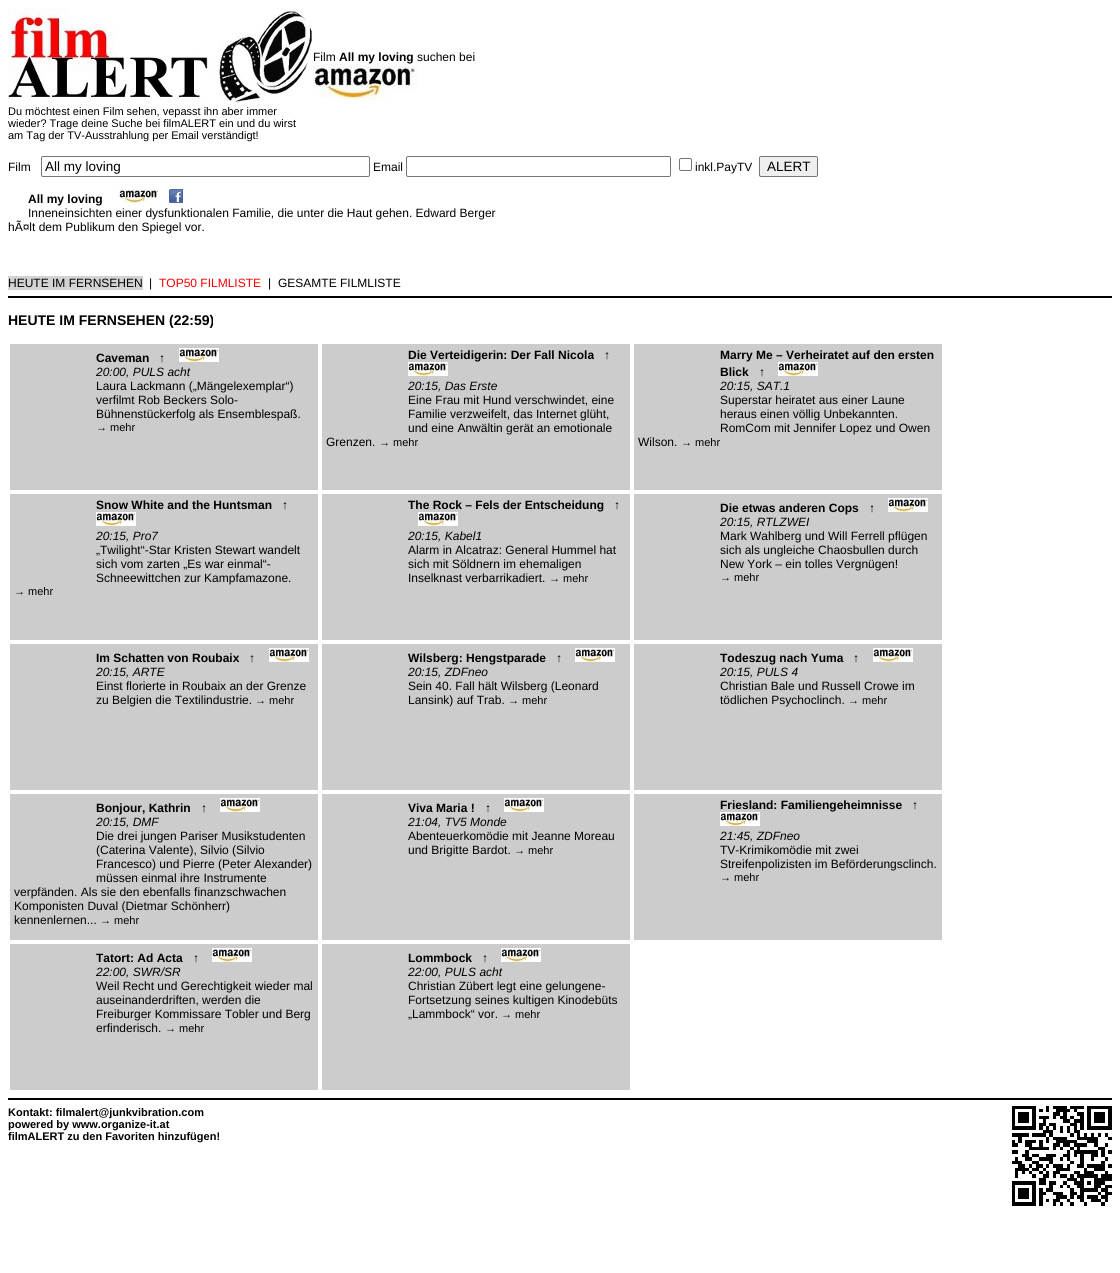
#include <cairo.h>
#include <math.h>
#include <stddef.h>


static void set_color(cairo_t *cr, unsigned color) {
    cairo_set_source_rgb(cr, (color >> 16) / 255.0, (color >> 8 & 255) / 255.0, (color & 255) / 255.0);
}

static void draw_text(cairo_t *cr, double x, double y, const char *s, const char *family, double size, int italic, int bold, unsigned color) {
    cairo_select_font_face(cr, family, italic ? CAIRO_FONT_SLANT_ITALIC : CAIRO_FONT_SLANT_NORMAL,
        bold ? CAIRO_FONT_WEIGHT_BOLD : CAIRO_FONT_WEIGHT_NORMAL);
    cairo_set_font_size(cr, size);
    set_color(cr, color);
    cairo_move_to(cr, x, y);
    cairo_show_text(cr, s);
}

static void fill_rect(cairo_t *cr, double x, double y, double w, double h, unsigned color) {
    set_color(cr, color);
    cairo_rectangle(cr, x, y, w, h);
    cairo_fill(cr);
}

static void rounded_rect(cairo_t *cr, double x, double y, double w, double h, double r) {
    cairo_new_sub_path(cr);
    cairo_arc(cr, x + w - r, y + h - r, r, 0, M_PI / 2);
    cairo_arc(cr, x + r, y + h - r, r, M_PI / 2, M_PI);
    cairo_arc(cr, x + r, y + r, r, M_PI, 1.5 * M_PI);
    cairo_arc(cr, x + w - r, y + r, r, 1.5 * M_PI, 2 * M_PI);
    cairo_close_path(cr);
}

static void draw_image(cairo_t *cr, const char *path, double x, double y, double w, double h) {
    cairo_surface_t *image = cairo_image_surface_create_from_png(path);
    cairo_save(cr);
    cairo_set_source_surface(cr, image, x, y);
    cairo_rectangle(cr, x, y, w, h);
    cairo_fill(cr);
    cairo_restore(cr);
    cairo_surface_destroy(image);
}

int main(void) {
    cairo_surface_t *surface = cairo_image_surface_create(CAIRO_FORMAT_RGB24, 1120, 1273);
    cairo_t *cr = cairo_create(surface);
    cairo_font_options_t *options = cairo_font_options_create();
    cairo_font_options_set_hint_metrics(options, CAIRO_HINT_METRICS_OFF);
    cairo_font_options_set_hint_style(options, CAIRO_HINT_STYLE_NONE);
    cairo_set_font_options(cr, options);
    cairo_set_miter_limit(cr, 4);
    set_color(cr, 0xFFFFFF);
    cairo_paint(cr);
    draw_text(cr, 313, 61, "Film", "Liberation Sans", 12, 0, 0, 0x000000);
    draw_text(cr, 339, 61, "All my loving", "Liberation Sans", 12, 0, 1, 0x000000);
    draw_text(cr, 417, 61, "suchen bei", "Liberation Sans", 12, 0, 0, 0x000000);
    draw_image(cr, "assets/img1.png", 313, 64, 104, 36);
    draw_image(cr, "assets/img2.png", 8, 8, 304, 96);
    draw_text(cr, 8, 115, "Du möchtest einen Film sehen, vepasst ihn aber immer", "Liberation Sans", 11, 0, 0, 0x000000);
    draw_text(cr, 8, 127, "wieder? Trage deine Suche bei filmALERT ein und du wirst", "Liberation Sans", 11, 0, 0, 0x000000);
    draw_text(cr, 8, 139, "am Tag der TV-Ausstrahlung per Email verständigt!", "Liberation Sans", 11, 0, 0, 0x000000);
    draw_text(cr, 8, 171, "Film", "Liberation Sans", 12, 0, 0, 0x000000);
    rounded_rect(cr, 41.5, 156.5, 328, 20, 1.5);
    set_color(cr, 0x767676);
    cairo_set_line_width(cr, 1);
    cairo_stroke(cr);
    draw_text(cr, 45, 171, "All my loving", "Liberation Sans", 13.5, 0, 0, 0x000000);
    draw_text(cr, 373, 171, "Email", "Liberation Sans", 12, 0, 0, 0x000000);
    rounded_rect(cr, 406.5, 156.5, 264, 20, 1.5);
    set_color(cr, 0x767676);
    cairo_stroke(cr);
    rounded_rect(cr, 679.5, 158.5, 12, 12, 1.5);
    cairo_stroke(cr);
    draw_text(cr, 695, 171, "inkl.PayTV", "Liberation Sans", 12, 0, 0, 0x000000);
    set_color(cr, 0xEFEFEF);
    rounded_rect(cr, 759.5, 156.5, 58, 20, 1.5);
    cairo_fill_preserve(cr);
    set_color(cr, 0x767676);
    cairo_stroke(cr);
    draw_text(cr, 767, 171, "ALERT", "Liberation Sans", 13.5, 0, 0, 0x000000);
    draw_text(cr, 28, 203, "All my loving", "Liberation Sans", 12, 0, 1, 0x000000);
    draw_image(cr, "assets/img3.png", 119, 189, 40, 14);
    draw_image(cr, "assets/img4.png", 169, 189, 14, 14);
    draw_text(cr, 28, 217, "Inneneinsichten einer dysfunktionalen Familie, die unter die Haut gehen. Edward Berger", "Liberation Sans", 12, 0, 0, 0x000000);
    draw_text(cr, 8, 231, "hÃ¤lt dem Publikum den Spiegel vor.", "Liberation Sans", 12, 0, 0, 0x000000);
    fill_rect(cr, 8, 276, 135, 14, 0xD3D3D3);
    draw_text(cr, 8, 287, "HEUTE IM FERNSEHEN", "Liberation Sans", 12, 0, 0, 0x000000);
    draw_text(cr, 149, 287, "|", "Liberation Sans", 12, 0, 0, 0x000000);
    draw_text(cr, 159, 287, "TOP50 FILMLISTE", "Liberation Sans", 12, 0, 0, 0xFF0000);
    draw_text(cr, 268, 287, "|", "Liberation Sans", 12, 0, 0, 0x000000);
    draw_text(cr, 278, 287, "GESAMTE FILMLISTE", "Liberation Sans", 12, 0, 0, 0x000000);
    fill_rect(cr, 8, 296, 1104, 2, 0x000000);
    draw_text(cr, 8, 325, "HEUTE IM FERNSEHEN (22:59)", "Liberation Sans", 14, 0, 1, 0x000000);
    fill_rect(cr, 10, 344, 308, 146, 0xCCCCCC);
    draw_text(cr, 96, 362, "Caveman", "Liberation Sans", 12, 0, 1, 0x000000);
    draw_text(cr, 159, 362, "↑", "Liberation Sans", 12, 0, 0, 0x000000);
    draw_image(cr, "assets/img3.png", 179, 348, 40, 14);
    draw_text(cr, 96, 376, "20:00, PULS acht", "Liberation Sans", 12, 1, 0, 0x000000);
    draw_text(cr, 96, 390, "Laura Lackmann („Mängelexemplar“)", "Liberation Sans", 12, 0, 0, 0x000000);
    draw_text(cr, 96, 404, "verfilmt Rob Beckers Solo-", "Liberation Sans", 12, 0, 0, 0x000000);
    draw_text(cr, 96, 418, "Bühnenstückerfolg als Ensemblespaß.", "Liberation Sans", 12, 0, 0, 0x000000);
    draw_text(cr, 96, 431, "→ mehr", "Liberation Sans", 11, 0, 0, 0x000000);
    fill_rect(cr, 322, 344, 308, 146, 0xCCCCCC);
    draw_text(cr, 408, 359, "Die Verteidigerin: Der Fall Nicola", "Liberation Sans", 12, 0, 1, 0x000000);
    draw_text(cr, 604, 359, "↑", "Liberation Sans", 12, 0, 0, 0x000000);
    draw_image(cr, "assets/img3.png", 408, 362, 40, 14);
    draw_text(cr, 408, 390, "20:15, Das Erste", "Liberation Sans", 12, 1, 0, 0x000000);
    draw_text(cr, 408, 404, "Eine Frau mit Hund verschwindet, eine", "Liberation Sans", 12, 0, 0, 0x000000);
    draw_text(cr, 408, 418, "Familie verzweifelt, das Internet glüht,", "Liberation Sans", 12, 0, 0, 0x000000);
    draw_text(cr, 408, 432, "und eine Anwältin gerät an emotionale", "Liberation Sans", 12, 0, 0, 0x000000);
    draw_text(cr, 326, 446, "Grenzen.", "Liberation Sans", 12, 0, 0, 0x000000);
    draw_text(cr, 379, 446, "→ mehr", "Liberation Sans", 11, 0, 0, 0x000000);
    fill_rect(cr, 634, 344, 308, 146, 0xCCCCCC);
    draw_text(cr, 720, 359, "Marry Me – Verheiratet auf den ersten", "Liberation Sans", 12, 0, 1, 0x000000);
    draw_text(cr, 720, 376, "Blick", "Liberation Sans", 12, 0, 1, 0x000000);
    draw_text(cr, 759, 376, "↑", "Liberation Sans", 12, 0, 0, 0x000000);
    draw_image(cr, "assets/img3.png", 778, 362, 40, 14);
    draw_text(cr, 720, 390, "20:15, SAT.1", "Liberation Sans", 12, 1, 0, 0x000000);
    draw_text(cr, 720, 404, "Superstar heiratet aus einer Laune", "Liberation Sans", 12, 0, 0, 0x000000);
    draw_text(cr, 720, 418, "heraus einen völlig Unbekannten.", "Liberation Sans", 12, 0, 0, 0x000000);
    draw_text(cr, 720, 432, "RomCom mit Jennifer Lopez und Owen", "Liberation Sans", 12, 0, 0, 0x000000);
    draw_text(cr, 638, 446, "Wilson.", "Liberation Sans", 12, 0, 0, 0x000000);
    draw_text(cr, 681, 446, "→ mehr", "Liberation Sans", 11, 0, 0, 0x000000);
    fill_rect(cr, 10, 494, 308, 146, 0xCCCCCC);
    draw_text(cr, 96, 509, "Snow White and the Huntsman", "Liberation Sans", 12, 0, 1, 0x000000);
    draw_text(cr, 282, 509, "↑", "Liberation Sans", 12, 0, 0, 0x000000);
    draw_image(cr, "assets/img3.png", 96, 512, 40, 14);
    draw_text(cr, 96, 540, "20:15, Pro7", "Liberation Sans", 12, 1, 0, 0x000000);
    draw_text(cr, 96, 554, "„Twilight“-Star Kristen Stewart wandelt", "Liberation Sans", 12, 0, 0, 0x000000);
    draw_text(cr, 96, 568, "sich vom zarten „Es war einmal“-", "Liberation Sans", 12, 0, 0, 0x000000);
    draw_text(cr, 96, 582, "Schneewittchen zur Kampfamazone.", "Liberation Sans", 12, 0, 0, 0x000000);
    draw_text(cr, 14, 595, "→ mehr", "Liberation Sans", 11, 0, 0, 0x000000);
    fill_rect(cr, 322, 494, 308, 146, 0xCCCCCC);
    draw_text(cr, 408, 509, "The Rock – Fels der Entscheidung", "Liberation Sans", 12, 0, 1, 0x000000);
    draw_text(cr, 614, 509, "↑", "Liberation Sans", 12, 0, 0, 0x000000);
    draw_image(cr, "assets/img3.png", 418, 512, 40, 14);
    draw_text(cr, 408, 540, "20:15, Kabel1", "Liberation Sans", 12, 1, 0, 0x000000);
    draw_text(cr, 408, 554, "Alarm in Alcatraz: General Hummel hat", "Liberation Sans", 12, 0, 0, 0x000000);
    draw_text(cr, 408, 568, "sich mit Söldnern im ehemaligen", "Liberation Sans", 12, 0, 0, 0x000000);
    draw_text(cr, 408, 582, "Inselknast verbarrikadiert.", "Liberation Sans", 12, 0, 0, 0x000000);
    draw_text(cr, 549, 582, "→ mehr", "Liberation Sans", 11, 0, 0, 0x000000);
    fill_rect(cr, 634, 494, 308, 146, 0xCCCCCC);
    draw_text(cr, 720, 512, "Die etwas anderen Cops", "Liberation Sans", 12, 0, 1, 0x000000);
    draw_text(cr, 869, 512, "↑", "Liberation Sans", 12, 0, 0, 0x000000);
    draw_image(cr, "assets/img3.png", 888, 498, 40, 14);
    draw_text(cr, 720, 526, "20:15, RTLZWEI", "Liberation Sans", 12, 1, 0, 0x000000);
    draw_text(cr, 720, 540, "Mark Wahlberg und Will Ferrell pflügen", "Liberation Sans", 12, 0, 0, 0x000000);
    draw_text(cr, 720, 554, "sich als ungleiche Chaosbullen durch", "Liberation Sans", 12, 0, 0, 0x000000);
    draw_text(cr, 720, 568, "New York – ein tolles Vergnügen!", "Liberation Sans", 12, 0, 0, 0x000000);
    draw_text(cr, 720, 581, "→ mehr", "Liberation Sans", 11, 0, 0, 0x000000);
    fill_rect(cr, 10, 644, 308, 146, 0xCCCCCC);
    draw_text(cr, 96, 662, "Im Schatten von Roubaix", "Liberation Sans", 12, 0, 1, 0x000000);
    draw_text(cr, 249, 662, "↑", "Liberation Sans", 12, 0, 0, 0x000000);
    draw_image(cr, "assets/img3.png", 269, 648, 40, 14);
    draw_text(cr, 96, 676, "20:15, ARTE", "Liberation Sans", 12, 1, 0, 0x000000);
    draw_text(cr, 96, 690, "Einst florierte in Roubaix an der Grenze", "Liberation Sans", 12, 0, 0, 0x000000);
    draw_text(cr, 96, 704, "zu Belgien die Textilindustrie.", "Liberation Sans", 12, 0, 0, 0x000000);
    draw_text(cr, 255, 704, "→ mehr", "Liberation Sans", 11, 0, 0, 0x000000);
    fill_rect(cr, 322, 644, 308, 146, 0xCCCCCC);
    draw_text(cr, 408, 662, "Wilsberg: Hengstparade", "Liberation Sans", 12, 0, 1, 0x000000);
    draw_text(cr, 556, 662, "↑", "Liberation Sans", 12, 0, 0, 0x000000);
    draw_image(cr, "assets/img3.png", 575, 648, 40, 14);
    draw_text(cr, 408, 676, "20:15, ZDFneo", "Liberation Sans", 12, 1, 0, 0x000000);
    draw_text(cr, 408, 690, "Sein 40. Fall hält Wilsberg (Leonard", "Liberation Sans", 12, 0, 0, 0x000000);
    draw_text(cr, 408, 704, "Lansink) auf Trab.", "Liberation Sans", 12, 0, 0, 0x000000);
    draw_text(cr, 508, 704, "→ mehr", "Liberation Sans", 11, 0, 0, 0x000000);
    fill_rect(cr, 634, 644, 308, 146, 0xCCCCCC);
    draw_text(cr, 720, 662, "Todeszug nach Yuma", "Liberation Sans", 12, 0, 1, 0x000000);
    draw_text(cr, 853, 662, "↑", "Liberation Sans", 12, 0, 0, 0x000000);
    draw_image(cr, "assets/img3.png", 873, 648, 40, 14);
    draw_text(cr, 720, 676, "20:15, PULS 4", "Liberation Sans", 12, 1, 0, 0x000000);
    draw_text(cr, 720, 690, "Christian Bale und Russell Crowe im", "Liberation Sans", 12, 0, 0, 0x000000);
    draw_text(cr, 720, 704, "tödlichen Psychoclinch.", "Liberation Sans", 12, 0, 0, 0x000000);
    draw_text(cr, 848, 704, "→ mehr", "Liberation Sans", 11, 0, 0, 0x000000);
    fill_rect(cr, 10, 794, 308, 146, 0xCCCCCC);
    draw_text(cr, 96, 812, "Bonjour, Kathrin", "Liberation Sans", 12, 0, 1, 0x000000);
    draw_text(cr, 201, 812, "↑", "Liberation Sans", 12, 0, 0, 0x000000);
    draw_image(cr, "assets/img3.png", 220, 798, 40, 14);
    draw_text(cr, 96, 826, "20:15, DMF", "Liberation Sans", 12, 1, 0, 0x000000);
    draw_text(cr, 96, 840, "Die drei jungen Pariser Musikstudenten", "Liberation Sans", 12, 0, 0, 0x000000);
    draw_text(cr, 96, 854, "(Caterina Valente), Silvio (Silvio", "Liberation Sans", 12, 0, 0, 0x000000);
    draw_text(cr, 96, 868, "Francesco) und Pierre (Peter Alexander)", "Liberation Sans", 12, 0, 0, 0x000000);
    draw_text(cr, 96, 882, "müssen einmal ihre Instrumente", "Liberation Sans", 12, 0, 0, 0x000000);
    draw_text(cr, 14, 896, "verpfänden. Als sie den ebenfalls finanzschwachen", "Liberation Sans", 12, 0, 0, 0x000000);
    draw_text(cr, 14, 910, "Komponisten Duval (Dietmar Schönherr)", "Liberation Sans", 12, 0, 0, 0x000000);
    draw_text(cr, 14, 924, "kennenlernen...", "Liberation Sans", 12, 0, 0, 0x000000);
    draw_text(cr, 100, 924, "→ mehr", "Liberation Sans", 11, 0, 0, 0x000000);
    fill_rect(cr, 322, 794, 308, 146, 0xCCCCCC);
    draw_text(cr, 408, 812, "Viva Maria !", "Liberation Sans", 12, 0, 1, 0x000000);
    draw_text(cr, 485, 812, "↑", "Liberation Sans", 12, 0, 0, 0x000000);
    draw_image(cr, "assets/img3.png", 504, 798, 40, 14);
    draw_text(cr, 408, 826, "21:04, TV5 Monde", "Liberation Sans", 12, 1, 0, 0x000000);
    draw_text(cr, 408, 840, "Abenteuerkomödie mit Jeanne Moreau", "Liberation Sans", 12, 0, 0, 0x000000);
    draw_text(cr, 408, 854, "und Brigitte Bardot.", "Liberation Sans", 12, 0, 0, 0x000000);
    draw_text(cr, 514, 854, "→ mehr", "Liberation Sans", 11, 0, 0, 0x000000);
    fill_rect(cr, 634, 794, 308, 146, 0xCCCCCC);
    draw_text(cr, 720, 809, "Friesland: Familiengeheimnisse", "Liberation Sans", 12, 0, 1, 0x000000);
    draw_text(cr, 912, 809, "↑", "Liberation Sans", 12, 0, 0, 0x000000);
    draw_image(cr, "assets/img3.png", 720, 812, 40, 14);
    draw_text(cr, 720, 840, "21:45, ZDFneo", "Liberation Sans", 12, 1, 0, 0x000000);
    draw_text(cr, 720, 854, "TV-Krimikomödie mit zwei", "Liberation Sans", 12, 0, 0, 0x000000);
    draw_text(cr, 720, 868, "Streifenpolizisten im Beförderungsclinch.", "Liberation Sans", 12, 0, 0, 0x000000);
    draw_text(cr, 720, 881, "→ mehr", "Liberation Sans", 11, 0, 0, 0x000000);
    fill_rect(cr, 10, 944, 308, 146, 0xCCCCCC);
    draw_text(cr, 96, 962, "Tatort: Ad Acta", "Liberation Sans", 12, 0, 1, 0x000000);
    draw_text(cr, 193, 962, "↑", "Liberation Sans", 12, 0, 0, 0x000000);
    draw_image(cr, "assets/img3.png", 212, 948, 40, 14);
    draw_text(cr, 96, 976, "22:00, SWR/SR", "Liberation Sans", 12, 1, 0, 0x000000);
    draw_text(cr, 96, 990, "Weil Recht und Gerechtigkeit wieder mal", "Liberation Sans", 12, 0, 0, 0x000000);
    draw_text(cr, 96, 1004, "auseinanderdriften, werden die", "Liberation Sans", 12, 0, 0, 0x000000);
    draw_text(cr, 96, 1018, "Freiburger Kommissare Tobler und Berg", "Liberation Sans", 12, 0, 0, 0x000000);
    draw_text(cr, 96, 1032, "erfinderisch.", "Liberation Sans", 12, 0, 0, 0x000000);
    draw_text(cr, 165, 1032, "→ mehr", "Liberation Sans", 11, 0, 0, 0x000000);
    fill_rect(cr, 322, 944, 308, 146, 0xCCCCCC);
    draw_text(cr, 408, 962, "Lommbock", "Liberation Sans", 12, 0, 1, 0x000000);
    draw_text(cr, 482, 962, "↑", "Liberation Sans", 12, 0, 0, 0x000000);
    draw_image(cr, "assets/img3.png", 501, 948, 40, 14);
    draw_text(cr, 408, 976, "22:00, PULS acht", "Liberation Sans", 12, 1, 0, 0x000000);
    draw_text(cr, 408, 990, "Christian Zübert legt eine gelungene-", "Liberation Sans", 12, 0, 0, 0x000000);
    draw_text(cr, 408, 1004, "Fortsetzung seines kultigen Kinodebüts", "Liberation Sans", 12, 0, 0, 0x000000);
    draw_text(cr, 408, 1018, "„Lammbock“ vor.", "Liberation Sans", 12, 0, 0, 0x000000);
    draw_text(cr, 501, 1018, "→ mehr", "Liberation Sans", 11, 0, 0, 0x000000);
    fill_rect(cr, 8, 1098, 1104, 2, 0x000000);
    draw_text(cr, 8, 1116, "Kontakt: filmalert@junkvibration.com", "Liberation Sans", 11, 0, 1, 0x000000);
    draw_image(cr, "assets/img5.png", 1012, 1106, 100, 100);
    draw_text(cr, 8, 1128, "powered by www.organize-it.at", "Liberation Sans", 11, 0, 1, 0x000000);
    draw_text(cr, 8, 1140, "filmALERT zu den Favoriten hinzufügen!", "Liberation Sans", 11, 0, 1, 0x000000);
    cairo_surface_write_to_png(surface, "output.png");
    cairo_font_options_destroy(options);
    cairo_destroy(cr);
    cairo_surface_destroy(surface);
    return 0;
}
